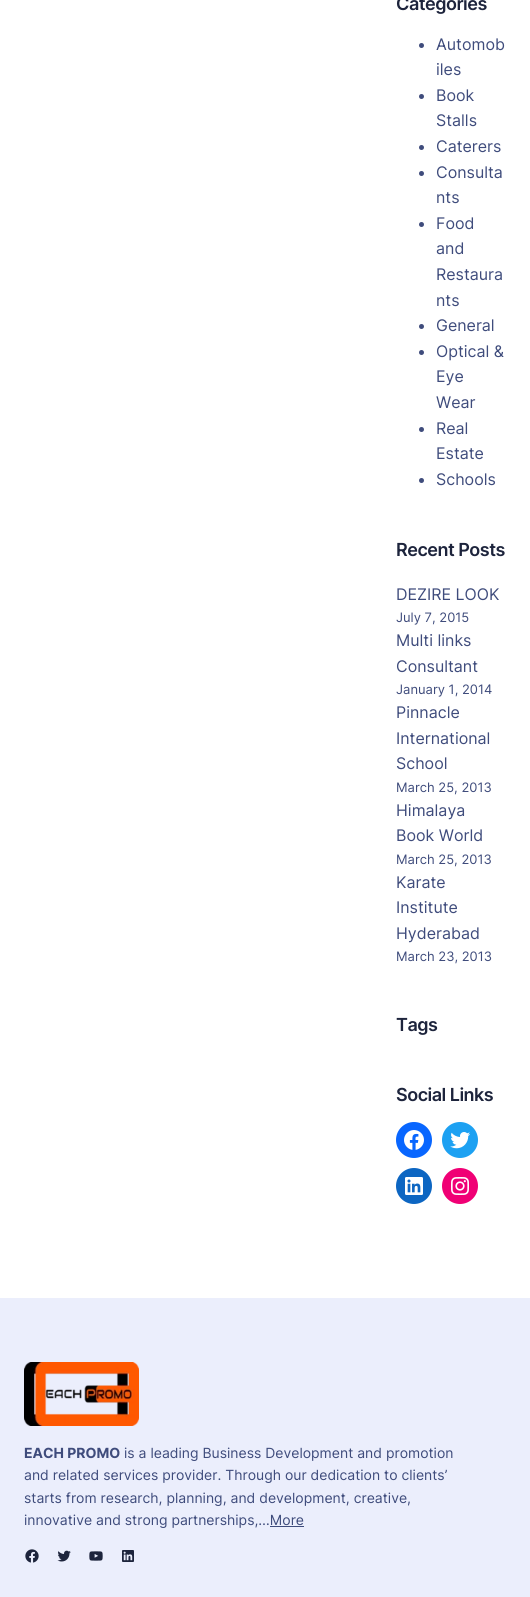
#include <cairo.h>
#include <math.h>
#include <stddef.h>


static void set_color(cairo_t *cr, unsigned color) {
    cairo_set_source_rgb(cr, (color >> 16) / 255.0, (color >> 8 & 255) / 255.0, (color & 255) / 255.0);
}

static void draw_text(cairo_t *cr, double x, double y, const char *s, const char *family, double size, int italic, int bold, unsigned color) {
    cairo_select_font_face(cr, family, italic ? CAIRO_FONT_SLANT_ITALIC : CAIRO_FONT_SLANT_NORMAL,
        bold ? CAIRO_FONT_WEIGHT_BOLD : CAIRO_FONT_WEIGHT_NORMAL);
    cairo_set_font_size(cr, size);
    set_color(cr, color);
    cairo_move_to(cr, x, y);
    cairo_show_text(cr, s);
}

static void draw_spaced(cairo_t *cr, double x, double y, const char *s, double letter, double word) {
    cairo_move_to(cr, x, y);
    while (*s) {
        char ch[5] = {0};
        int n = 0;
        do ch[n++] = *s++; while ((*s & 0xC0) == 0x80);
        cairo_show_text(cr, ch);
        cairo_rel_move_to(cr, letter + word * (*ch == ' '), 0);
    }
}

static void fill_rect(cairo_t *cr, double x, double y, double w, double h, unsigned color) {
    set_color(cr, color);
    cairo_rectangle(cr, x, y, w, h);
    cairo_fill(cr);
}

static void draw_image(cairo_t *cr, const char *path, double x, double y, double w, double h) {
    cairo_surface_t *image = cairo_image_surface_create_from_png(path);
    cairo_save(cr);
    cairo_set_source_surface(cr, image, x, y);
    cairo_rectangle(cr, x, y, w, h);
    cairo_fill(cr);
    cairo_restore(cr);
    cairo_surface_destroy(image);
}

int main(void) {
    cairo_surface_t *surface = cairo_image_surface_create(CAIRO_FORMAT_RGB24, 530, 1597);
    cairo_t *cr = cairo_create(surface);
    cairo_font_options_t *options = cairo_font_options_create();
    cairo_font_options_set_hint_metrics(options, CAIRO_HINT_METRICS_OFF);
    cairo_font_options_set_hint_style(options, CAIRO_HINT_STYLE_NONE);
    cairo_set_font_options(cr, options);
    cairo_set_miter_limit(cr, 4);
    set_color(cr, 0xFFFFFF);
    cairo_paint(cr);
    cairo_select_font_face(cr, "Inter SemiBold", CAIRO_FONT_SLANT_NORMAL, CAIRO_FONT_WEIGHT_NORMAL);
    cairo_set_font_size(cr, 18);
    set_color(cr, 0x1D243C);
    draw_spaced(cr, 396, 10, "Categories", -0.5, 0);
    set_color(cr, 0x3F4C7C);
    cairo_new_path(cr);
    cairo_arc(cr, 421.5, 45.5, 2.5, 0, 2 * M_PI);
    cairo_fill(cr);
    draw_text(cr, 436, 50, "Automob", "Inter", 16, 0, 0, 0x3F4C7C);
    draw_text(cr, 436, 75, "iles", "Inter", 16, 0, 0, 0x3F4C7C);
    cairo_new_path(cr);
    cairo_arc(cr, 421.5, 96.5, 2.5, 0, 2 * M_PI);
    cairo_fill(cr);
    draw_text(cr, 436, 101, "Book", "Inter", 16, 0, 0, 0x3F4C7C);
    draw_text(cr, 436, 126, "Stalls", "Inter", 16, 0, 0, 0x3F4C7C);
    cairo_new_path(cr);
    cairo_arc(cr, 421.5, 147.5, 2.5, 0, 2 * M_PI);
    cairo_fill(cr);
    draw_text(cr, 436, 152, "Caterers", "Inter", 16, 0, 0, 0x3F4C7C);
    cairo_new_path(cr);
    cairo_arc(cr, 421.5, 173.5, 2.5, 0, 2 * M_PI);
    cairo_fill(cr);
    draw_text(cr, 436, 178, "Consulta", "Inter", 16, 0, 0, 0x3F4C7C);
    draw_text(cr, 436, 203, "nts", "Inter", 16, 0, 0, 0x3F4C7C);
    cairo_new_path(cr);
    cairo_arc(cr, 421.5, 224.5, 2.5, 0, 2 * M_PI);
    cairo_fill(cr);
    draw_text(cr, 436, 229, "Food", "Inter", 16, 0, 0, 0x3F4C7C);
    draw_text(cr, 436, 254, "and", "Inter", 16, 0, 0, 0x3F4C7C);
    draw_text(cr, 436, 280, "Restaura", "Inter", 16, 0, 0, 0x3F4C7C);
    draw_text(cr, 436, 306, "nts", "Inter", 16, 0, 0, 0x3F4C7C);
    cairo_new_path(cr);
    cairo_arc(cr, 421.5, 326.5, 2.5, 0, 2 * M_PI);
    cairo_fill(cr);
    draw_text(cr, 436, 331, "General", "Inter", 16, 0, 0, 0x3F4C7C);
    cairo_new_path(cr);
    cairo_arc(cr, 421.5, 352.5, 2.5, 0, 2 * M_PI);
    cairo_fill(cr);
    draw_text(cr, 436, 357, "Optical &", "Inter", 16, 0, 0, 0x3F4C7C);
    draw_text(cr, 436, 382, "Eye", "Inter", 16, 0, 0, 0x3F4C7C);
    draw_text(cr, 436, 408, "Wear", "Inter", 16, 0, 0, 0x3F4C7C);
    cairo_new_path(cr);
    cairo_arc(cr, 421.5, 429.5, 2.5, 0, 2 * M_PI);
    cairo_fill(cr);
    draw_text(cr, 436, 434, "Real", "Inter", 16, 0, 0, 0x3F4C7C);
    draw_text(cr, 436, 459, "Estate", "Inter", 16, 0, 0, 0x3F4C7C);
    cairo_new_path(cr);
    cairo_arc(cr, 421.5, 480.5, 2.5, 0, 2 * M_PI);
    cairo_fill(cr);
    draw_text(cr, 436, 485, "Schools", "Inter", 16, 0, 0, 0x3F4C7C);
    cairo_select_font_face(cr, "Inter SemiBold", CAIRO_FONT_SLANT_NORMAL, CAIRO_FONT_WEIGHT_NORMAL);
    cairo_set_font_size(cr, 18);
    set_color(cr, 0x1D243C);
    draw_spaced(cr, 396, 556, "Recent Posts", -0.5, 0);
    draw_text(cr, 396, 600, "DEZIRE LOOK", "Inter", 16, 0, 0, 0x3F4C7C);
    draw_text(cr, 396, 622, "July 7, 2015", "Inter", 13, 0, 0, 0x3F4C7C);
    draw_text(cr, 396, 646, "Multi links", "Inter", 16, 0, 0, 0x3F4C7C);
    draw_text(cr, 396, 672, "Consultant", "Inter", 16, 0, 0, 0x3F4C7C);
    draw_text(cr, 396, 694, "January 1, 2014", "Inter", 13, 0, 0, 0x3F4C7C);
    draw_text(cr, 396, 718, "Pinnacle", "Inter", 16, 0, 0, 0x3F4C7C);
    draw_text(cr, 396, 744, "International", "Inter", 16, 0, 0, 0x3F4C7C);
    draw_text(cr, 396, 769, "School", "Inter", 16, 0, 0, 0x3F4C7C);
    draw_text(cr, 396, 792, "March 25, 2013", "Inter", 13, 0, 0, 0x3F4C7C);
    draw_text(cr, 396, 816, "Himalaya", "Inter", 16, 0, 0, 0x3F4C7C);
    draw_text(cr, 396, 841, "Book World", "Inter", 16, 0, 0, 0x3F4C7C);
    draw_text(cr, 396, 864, "March 25, 2013", "Inter", 13, 0, 0, 0x3F4C7C);
    draw_text(cr, 396, 888, "Karate", "Inter", 16, 0, 0, 0x3F4C7C);
    draw_text(cr, 396, 913, "Institute", "Inter", 16, 0, 0, 0x3F4C7C);
    draw_text(cr, 396, 939, "Hyderabad", "Inter", 16, 0, 0, 0x3F4C7C);
    draw_text(cr, 396, 961, "March 23, 2013", "Inter", 13, 0, 0, 0x3F4C7C);
    cairo_select_font_face(cr, "Inter SemiBold", CAIRO_FONT_SLANT_NORMAL, CAIRO_FONT_WEIGHT_NORMAL);
    cairo_set_font_size(cr, 18);
    set_color(cr, 0x1D243C);
    draw_spaced(cr, 396, 1031, "Tags", -0.5, 0);
    draw_spaced(cr, 396, 1101, "Social Links", -0.5, 0);
    set_color(cr, 0x0866FF);
    cairo_new_path(cr);
    cairo_arc(cr, 414, 1140, 18, 0, 2 * M_PI);
    cairo_fill(cr);
    draw_image(cr, "assets/img1.png", 404, 1130, 20, 20);
    set_color(cr, 0x1DA1F2);
    cairo_arc(cr, 460, 1140, 18, 0, 2 * M_PI);
    cairo_fill(cr);
    draw_image(cr, "assets/img2.png", 450, 1132, 20, 17);
    set_color(cr, 0x0D66C2);
    cairo_arc(cr, 414, 1186, 18, 0, 2 * M_PI);
    cairo_fill(cr);
    draw_image(cr, "assets/img3.png", 405, 1177, 18, 18);
    set_color(cr, 0xF00075);
    cairo_arc(cr, 460, 1186, 18, 0, 2 * M_PI);
    cairo_fill(cr);
    draw_image(cr, "assets/img4.png", 451, 1177, 18, 18);
    fill_rect(cr, 0, 1298, 530, 299, 0xEBEEFC);
    draw_image(cr, "assets/img5.png", 24, 1362, 115, 64);
    draw_text(cr, 24, 1458, "EACH PROMO", "Inter", 14, 0, 1, 0x3F4C7C);
    draw_text(cr, 124, 1458, "is a leading Business Development and promotion", "Inter", 14, 0, 0, 0x3F4C7C);
    draw_text(cr, 24, 1480, "and related services provider. Through our dedication to clients’", "Inter", 14, 0, 0, 0x3F4C7C);
    draw_text(cr, 24, 1503, "starts from research, planning, and development, creative,", "Inter", 14, 0, 0, 0x3F4C7C);
    draw_text(cr, 24, 1525, "innovative and strong partnerships,…More", "Inter", 14, 0, 0, 0x3F4C7C);
    fill_rect(cr, 270, 1526, 34, 1, 0x3F4C7C);
    draw_image(cr, "assets/img6.png", 25, 1549, 14, 14);
    draw_image(cr, "assets/img7.png", 57, 1550, 14, 12);
    draw_image(cr, "assets/img8.png", 89, 1551, 14, 10);
    draw_image(cr, "assets/img9.png", 122, 1550, 12, 12);
    cairo_surface_write_to_png(surface, "output.png");
    cairo_font_options_destroy(options);
    cairo_destroy(cr);
    cairo_surface_destroy(surface);
    return 0;
}
